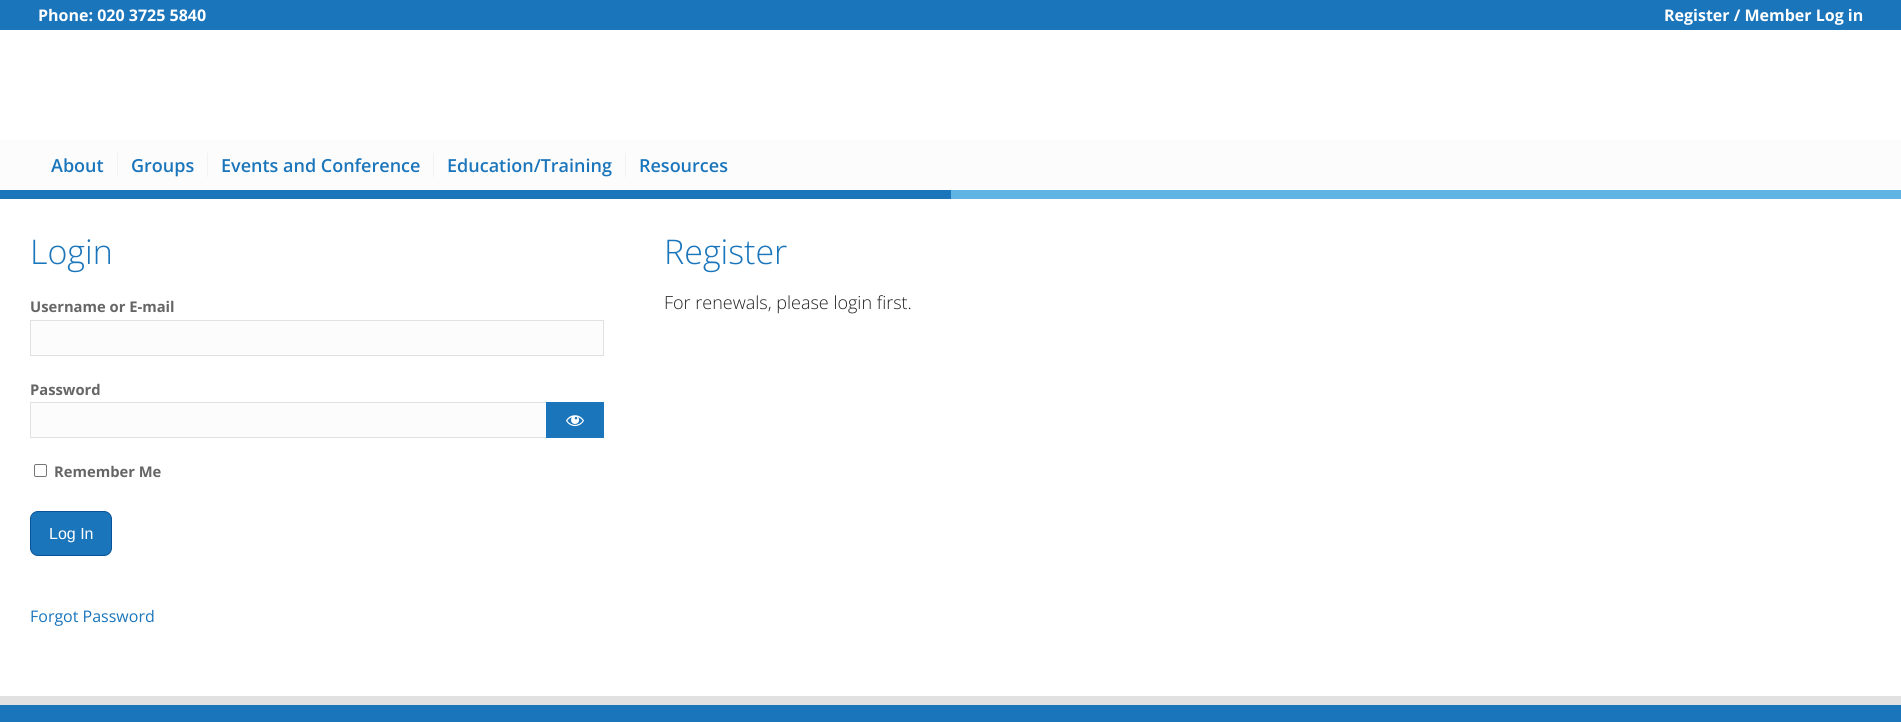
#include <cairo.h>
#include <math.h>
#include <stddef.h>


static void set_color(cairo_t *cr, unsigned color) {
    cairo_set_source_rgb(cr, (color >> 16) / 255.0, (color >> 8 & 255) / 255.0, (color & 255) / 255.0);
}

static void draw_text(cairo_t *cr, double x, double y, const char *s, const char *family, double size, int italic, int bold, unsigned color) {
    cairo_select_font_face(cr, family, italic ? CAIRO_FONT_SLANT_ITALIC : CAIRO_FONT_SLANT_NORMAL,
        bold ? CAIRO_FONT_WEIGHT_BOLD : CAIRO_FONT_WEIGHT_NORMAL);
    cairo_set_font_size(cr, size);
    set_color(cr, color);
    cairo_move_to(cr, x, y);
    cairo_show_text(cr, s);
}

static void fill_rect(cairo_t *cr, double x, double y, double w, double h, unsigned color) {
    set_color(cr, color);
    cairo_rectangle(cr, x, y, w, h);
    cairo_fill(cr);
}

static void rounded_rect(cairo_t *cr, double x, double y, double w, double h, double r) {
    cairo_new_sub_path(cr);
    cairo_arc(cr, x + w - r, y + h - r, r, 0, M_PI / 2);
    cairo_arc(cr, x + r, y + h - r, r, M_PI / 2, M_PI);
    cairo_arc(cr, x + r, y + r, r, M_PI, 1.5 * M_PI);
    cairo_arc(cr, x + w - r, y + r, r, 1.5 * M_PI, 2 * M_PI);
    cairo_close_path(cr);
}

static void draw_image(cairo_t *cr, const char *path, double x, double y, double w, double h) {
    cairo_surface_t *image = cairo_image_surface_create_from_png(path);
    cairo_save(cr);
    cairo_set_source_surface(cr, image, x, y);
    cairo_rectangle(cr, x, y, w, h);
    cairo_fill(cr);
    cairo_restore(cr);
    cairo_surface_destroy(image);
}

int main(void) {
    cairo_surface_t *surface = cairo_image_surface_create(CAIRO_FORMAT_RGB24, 1901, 722);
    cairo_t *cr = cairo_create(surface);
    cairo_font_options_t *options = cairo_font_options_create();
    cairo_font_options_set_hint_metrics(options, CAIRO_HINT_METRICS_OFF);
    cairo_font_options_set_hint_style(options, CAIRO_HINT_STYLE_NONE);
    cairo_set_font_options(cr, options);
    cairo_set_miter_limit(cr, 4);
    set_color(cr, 0xFFFFFF);
    cairo_paint(cr);
    fill_rect(cr, 0, 0, 1901, 30, 0x1A75BB);
    draw_text(cr, 38, 21, "Phone: 020 3725 5840", "Open Sans", 16, 0, 1, 0xFFFFFF);
    draw_text(cr, 1664, 21, "Register / Member Log in", "Open Sans", 16, 0, 1, 0xFFFFFF);
    fill_rect(cr, 0, 140, 1901, 50, 0xFCFCFC);
    draw_text(cr, 51, 172, "About", "Open Sans SemiBold", 18, 0, 0, 0x1A75BB);
    draw_text(cr, 131, 172, "Groups", "Open Sans SemiBold", 18, 0, 0, 0x1A75BB);
    fill_rect(cr, 117, 153, 1, 24, 0xF2F2F2);
    draw_text(cr, 221, 172, "Events and Conference", "Open Sans SemiBold", 18, 0, 0, 0x1A75BB);
    fill_rect(cr, 207, 153, 1, 24, 0xF2F2F2);
    draw_text(cr, 447, 172, "Education/Training", "Open Sans SemiBold", 18, 0, 0, 0x1A75BB);
    fill_rect(cr, 433, 153, 1, 24, 0xF2F2F2);
    draw_text(cr, 639, 172, "Resources", "Open Sans SemiBold", 18, 0, 0, 0x1A75BB);
    fill_rect(cr, 625, 153, 1, 24, 0xF2F2F2);
    fill_rect(cr, 0, 190, 951, 9, 0x1A75BB);
    fill_rect(cr, 951, 190, 950, 9, 0x5FB4E4);
    draw_text(cr, 30, 264, "Login", "Open Sans Light", 34, 0, 0, 0x1A75BB);
    draw_text(cr, 30, 312, "Username or E-mail", "Open Sans", 14.75, 0, 1, 0x666666);
    set_color(cr, 0xFCFCFC);
    cairo_rectangle(cr, 30.5, 320.5, 573, 35);
    cairo_fill_preserve(cr);
    set_color(cr, 0xE1E1E1);
    cairo_set_line_width(cr, 1);
    cairo_stroke(cr);
    draw_text(cr, 30, 395, "Password", "Open Sans", 14.75, 0, 1, 0x666666);
    fill_rect(cr, 31, 403, 515, 34, 0xFCFCFC);
    cairo_rectangle(cr, 30.5, 402.5, 573, 35);
    set_color(cr, 0xE1E1E1);
    cairo_stroke(cr);
    fill_rect(cr, 546, 402, 58, 36, 0x1A75BB);
    draw_image(cr, "assets/img1.png", 566, 415, 18, 12);
    rounded_rect(cr, 34.5, 464.5, 12, 12, 1.5);
    set_color(cr, 0x767676);
    cairo_stroke(cr);
    draw_text(cr, 54, 477, "Remember Me", "Open Sans", 14.75, 0, 1, 0x666666);
    set_color(cr, 0x1A75BB);
    rounded_rect(cr, 30.5, 511.5, 81, 44, 7.5);
    cairo_fill_preserve(cr);
    set_color(cr, 0x085399);
    cairo_stroke(cr);
    draw_text(cr, 49, 539, "Log In", "Liberation Sans", 16, 0, 0, 0xFFFFFF);
    draw_text(cr, 30, 622, "Forgot Password", "Open Sans", 16, 0, 0, 0x1A75BB);
    draw_text(cr, 664, 264, "Register", "Open Sans Light", 34, 0, 0, 0x1A75BB);
    draw_text(cr, 664, 309, "For renewals, please login first.", "Open Sans Light", 18, 0, 0, 0x222222);
    fill_rect(cr, 0, 696, 1901, 9, 0xE1E1E1);
    fill_rect(cr, 0, 705, 1901, 17, 0x1A75BB);
    cairo_surface_write_to_png(surface, "output.png");
    cairo_font_options_destroy(options);
    cairo_destroy(cr);
    cairo_surface_destroy(surface);
    return 0;
}
